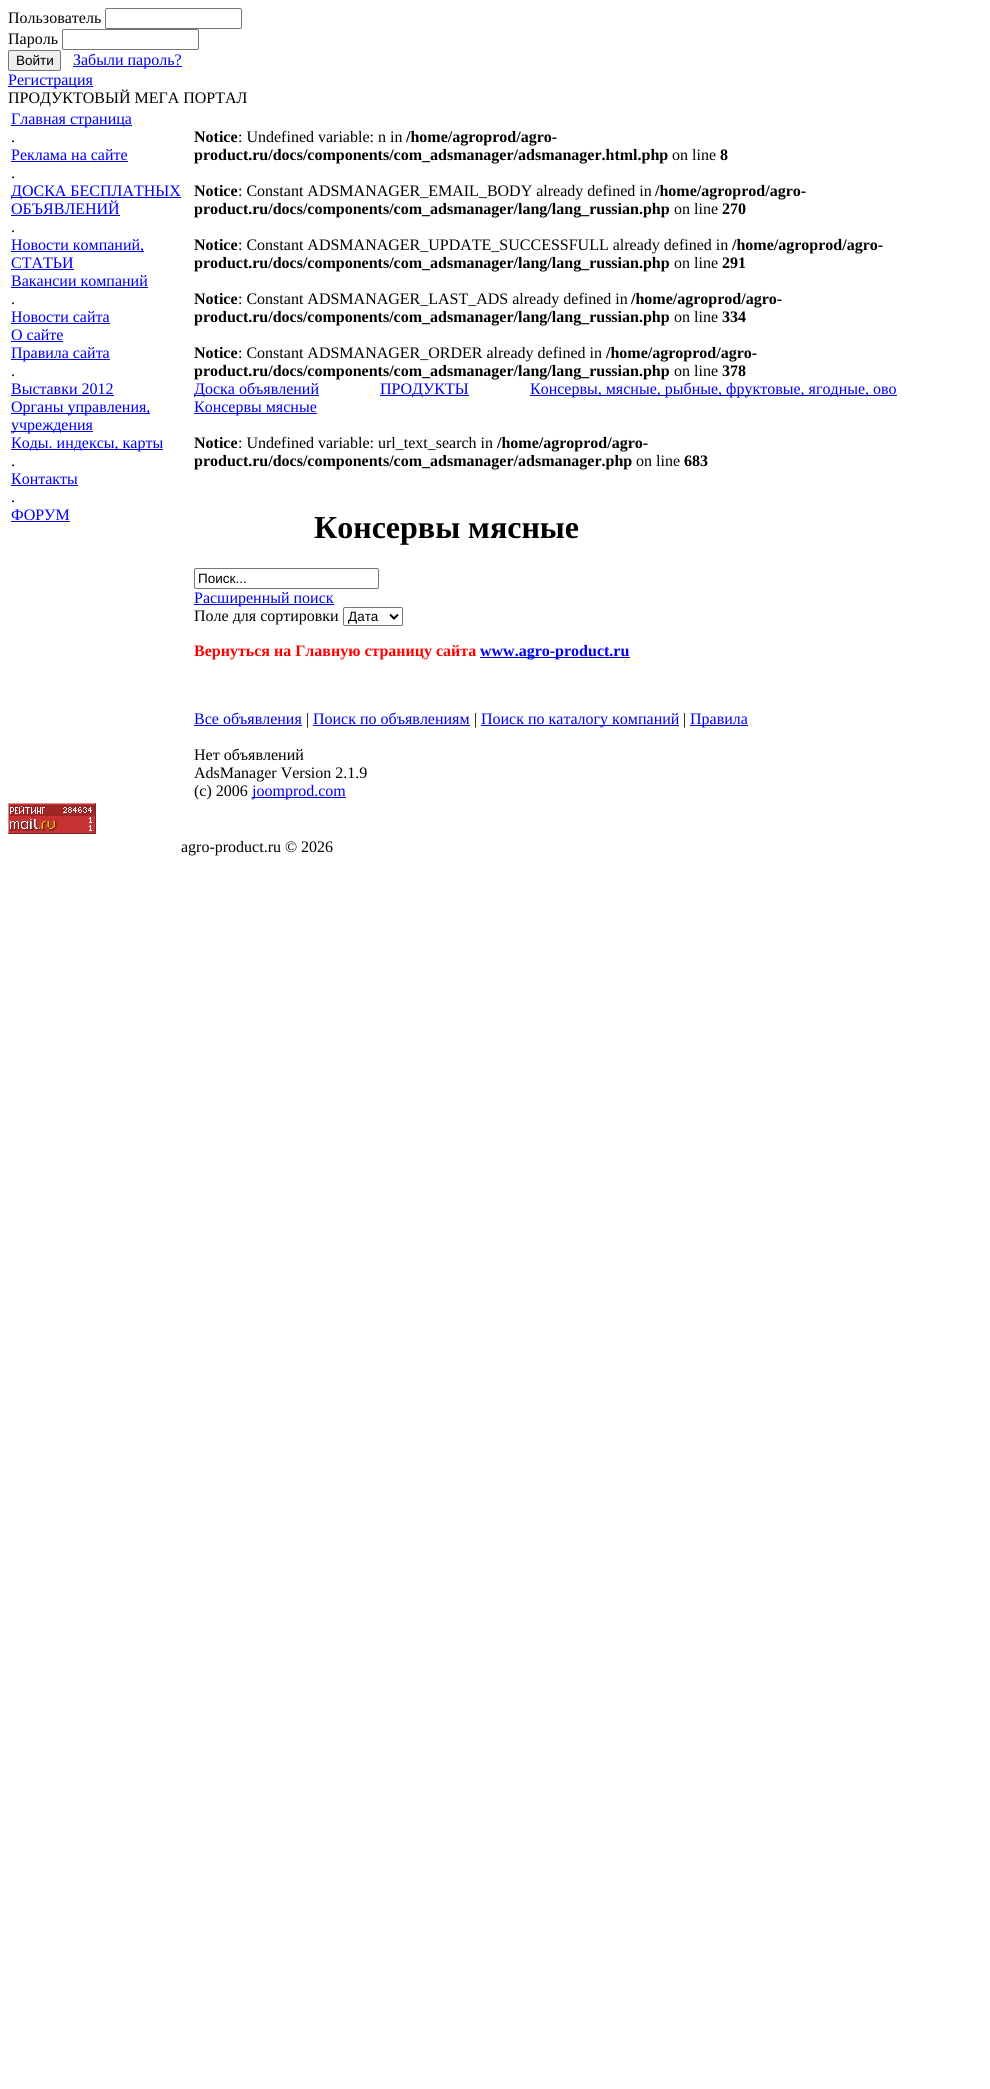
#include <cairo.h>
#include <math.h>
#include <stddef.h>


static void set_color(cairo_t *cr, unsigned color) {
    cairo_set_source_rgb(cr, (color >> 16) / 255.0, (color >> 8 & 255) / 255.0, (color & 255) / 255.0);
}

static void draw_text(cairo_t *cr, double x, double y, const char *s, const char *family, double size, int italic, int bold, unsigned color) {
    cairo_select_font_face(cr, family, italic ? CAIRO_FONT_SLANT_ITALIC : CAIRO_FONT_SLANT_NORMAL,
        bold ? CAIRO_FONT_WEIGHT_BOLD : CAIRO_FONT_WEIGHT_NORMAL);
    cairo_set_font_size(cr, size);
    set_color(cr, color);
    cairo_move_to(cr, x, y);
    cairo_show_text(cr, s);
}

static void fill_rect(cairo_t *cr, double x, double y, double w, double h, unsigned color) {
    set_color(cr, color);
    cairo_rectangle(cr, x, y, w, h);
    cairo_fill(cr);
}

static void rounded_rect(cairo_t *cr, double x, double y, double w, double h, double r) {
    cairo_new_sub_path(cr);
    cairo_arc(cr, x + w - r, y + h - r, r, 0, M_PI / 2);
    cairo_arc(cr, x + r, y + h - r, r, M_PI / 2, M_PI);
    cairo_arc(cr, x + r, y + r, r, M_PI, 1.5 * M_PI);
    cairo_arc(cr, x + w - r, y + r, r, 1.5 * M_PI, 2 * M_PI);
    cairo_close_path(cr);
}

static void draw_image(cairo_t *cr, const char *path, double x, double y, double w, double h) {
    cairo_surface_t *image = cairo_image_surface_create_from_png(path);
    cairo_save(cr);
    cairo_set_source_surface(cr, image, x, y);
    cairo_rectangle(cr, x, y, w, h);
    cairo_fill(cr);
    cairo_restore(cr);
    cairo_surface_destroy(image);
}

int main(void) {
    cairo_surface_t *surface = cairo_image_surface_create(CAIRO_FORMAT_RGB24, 990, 2089);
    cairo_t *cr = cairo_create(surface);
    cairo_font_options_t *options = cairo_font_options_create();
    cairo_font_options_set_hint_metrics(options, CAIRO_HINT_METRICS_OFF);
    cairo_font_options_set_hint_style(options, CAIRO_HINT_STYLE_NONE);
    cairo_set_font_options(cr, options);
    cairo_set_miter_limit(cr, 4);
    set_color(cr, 0xFFFFFF);
    cairo_paint(cr);
    draw_text(cr, 8, 23, "Пользователь", "Liberation Serif", 16, 0, 0, 0x000000);
    rounded_rect(cr, 105.5, 8.5, 136, 20, 1.5);
    set_color(cr, 0x767676);
    cairo_set_line_width(cr, 1);
    cairo_stroke(cr);
    draw_text(cr, 8, 44, "Пароль", "Liberation Serif", 16, 0, 0, 0x000000);
    rounded_rect(cr, 62.5, 29.5, 136, 20, 1.5);
    set_color(cr, 0x767676);
    cairo_stroke(cr);
    set_color(cr, 0xEFEFEF);
    rounded_rect(cr, 8.5, 50.5, 52, 20, 1.5);
    cairo_fill_preserve(cr);
    set_color(cr, 0x767676);
    cairo_stroke(cr);
    draw_text(cr, 16, 65, "Войти", "Liberation Sans", 13.5, 0, 0, 0x000000);
    fill_rect(cr, 73, 66, 109, 1, 0x0000EE);
    draw_text(cr, 73, 65, "Забыли пароль?", "Liberation Serif", 16, 0, 0, 0x0000EE);
    fill_rect(cr, 8, 86, 85, 1, 0x0000EE);
    draw_text(cr, 8, 85, "Регистрация", "Liberation Serif", 16, 0, 0, 0x0000EE);
    draw_text(cr, 8, 103, "ПРОДУКТОВЫЙ МЕГА ПОРТАЛ", "Liberation Serif", 16, 0, 0, 0x000000);
    fill_rect(cr, 11, 125, 121, 1, 0x0000EE);
    draw_text(cr, 11, 124, "Главная страница", "Liberation Serif", 16, 0, 0, 0x0000EE);
    draw_text(cr, 11, 142, ".", "Liberation Serif", 16, 0, 0, 0x000000);
    draw_text(cr, 11, 160, "Реклама на сайте", "Liberation Serif", 16, 0, 0, 0x0000EE);
    fill_rect(cr, 11, 161, 117, 1, 0x0000EE);
    draw_text(cr, 11, 178, ".", "Liberation Serif", 16, 0, 0, 0x000000);
    fill_rect(cr, 11, 197, 170, 1, 0x0000EE);
    draw_text(cr, 11, 196, "ДОСКА БЕСПЛАТНЫХ", "Liberation Serif", 16, 0, 0, 0x0000EE);
    draw_text(cr, 11, 214, "ОБЪЯВЛЕНИЙ", "Liberation Serif", 16, 0, 0, 0x0000EE);
    fill_rect(cr, 11, 215, 109, 1, 0x0000EE);
    draw_text(cr, 11, 232, ".", "Liberation Serif", 16, 0, 0, 0x000000);
    fill_rect(cr, 11, 251, 133, 1, 0x0000EE);
    draw_text(cr, 11, 250, "Новости компаний,", "Liberation Serif", 16, 0, 0, 0x0000EE);
    draw_text(cr, 11, 268, "СТАТЬИ", "Liberation Serif", 16, 0, 0, 0x0000EE);
    fill_rect(cr, 11, 269, 63, 1, 0x0000EE);
    draw_text(cr, 11, 286, "Вакансии компаний", "Liberation Serif", 16, 0, 0, 0x0000EE);
    fill_rect(cr, 11, 287, 137, 1, 0x0000EE);
    draw_text(cr, 11, 304, ".", "Liberation Serif", 16, 0, 0, 0x000000);
    draw_text(cr, 11, 322, "Новости сайта", "Liberation Serif", 16, 0, 0, 0x0000EE);
    fill_rect(cr, 11, 323, 99, 1, 0x0000EE);
    draw_text(cr, 11, 340, "О сайте", "Liberation Serif", 16, 0, 0, 0x0000EE);
    fill_rect(cr, 11, 341, 52, 1, 0x0000EE);
    fill_rect(cr, 11, 359, 99, 1, 0x0000EE);
    draw_text(cr, 11, 358, "Правила сайта", "Liberation Serif", 16, 0, 0, 0x0000EE);
    draw_text(cr, 11, 376, ".", "Liberation Serif", 16, 0, 0, 0x000000);
    draw_text(cr, 11, 394, "Выставки 2012", "Liberation Serif", 16, 0, 0, 0x0000EE);
    fill_rect(cr, 11, 395, 103, 1, 0x0000EE);
    fill_rect(cr, 11, 413, 139, 1, 0x0000EE);
    draw_text(cr, 11, 412, "Органы управления,", "Liberation Serif", 16, 0, 0, 0x0000EE);
    fill_rect(cr, 11, 431, 82, 1, 0x0000EE);
    draw_text(cr, 11, 430, "учреждения", "Liberation Serif", 16, 0, 0, 0x0000EE);
    fill_rect(cr, 11, 449, 152, 1, 0x0000EE);
    draw_text(cr, 11, 448, "Коды. индексы, карты", "Liberation Serif", 16, 0, 0, 0x0000EE);
    draw_text(cr, 11, 466, ".", "Liberation Serif", 16, 0, 0, 0x000000);
    draw_text(cr, 11, 484, "Контакты", "Liberation Serif", 16, 0, 0, 0x0000EE);
    fill_rect(cr, 11, 485, 67, 1, 0x0000EE);
    draw_text(cr, 11, 502, ".", "Liberation Serif", 16, 0, 0, 0x000000);
    draw_text(cr, 11, 520, "ФОРУМ", "Liberation Serif", 16, 0, 0, 0x0000EE);
    fill_rect(cr, 11, 521, 59, 1, 0x0000EE);
    draw_text(cr, 194, 142, "Notice", "Liberation Serif", 16, 0, 1, 0x000000);
    draw_text(cr, 238, 142, ": Undefined variable: n in", "Liberation Serif", 16, 0, 0, 0x000000);
    draw_text(cr, 406, 142, "/home/agroprod/agro-", "Liberation Serif", 16, 0, 1, 0x000000);
    draw_text(cr, 194, 160, "product.ru/docs/components/com_adsmanager/adsmanager.html.php", "Liberation Serif", 16, 0, 1, 0x000000);
    draw_text(cr, 672, 160, "on line", "Liberation Serif", 16, 0, 0, 0x000000);
    draw_text(cr, 720, 160, "8", "Liberation Serif", 16, 0, 1, 0x000000);
    draw_text(cr, 194, 196, "Notice", "Liberation Serif", 16, 0, 1, 0x000000);
    draw_text(cr, 238, 196, ": Constant ADSMANAGER_EMAIL_BODY already defined in", "Liberation Serif", 16, 0, 0, 0x000000);
    draw_text(cr, 655, 196, "/home/agroprod/agro-", "Liberation Serif", 16, 0, 1, 0x000000);
    draw_text(cr, 194, 214, "product.ru/docs/components/com_adsmanager/lang/lang_russian.php", "Liberation Serif", 16, 0, 1, 0x000000);
    draw_text(cr, 674, 214, "on line", "Liberation Serif", 16, 0, 0, 0x000000);
    draw_text(cr, 722, 214, "270", "Liberation Serif", 16, 0, 1, 0x000000);
    draw_text(cr, 194, 250, "Notice", "Liberation Serif", 16, 0, 1, 0x000000);
    draw_text(cr, 238, 250, ": Constant ADSMANAGER_UPDATE_SUCCESSFULL already defined in", "Liberation Serif", 16, 0, 0, 0x000000);
    draw_text(cr, 732, 250, "/home/agroprod/agro-", "Liberation Serif", 16, 0, 1, 0x000000);
    draw_text(cr, 194, 268, "product.ru/docs/components/com_adsmanager/lang/lang_russian.php", "Liberation Serif", 16, 0, 1, 0x000000);
    draw_text(cr, 674, 268, "on line", "Liberation Serif", 16, 0, 0, 0x000000);
    draw_text(cr, 722, 268, "291", "Liberation Serif", 16, 0, 1, 0x000000);
    draw_text(cr, 194, 304, "Notice", "Liberation Serif", 16, 0, 1, 0x000000);
    draw_text(cr, 238, 304, ": Constant ADSMANAGER_LAST_ADS already defined in", "Liberation Serif", 16, 0, 0, 0x000000);
    draw_text(cr, 631, 304, "/home/agroprod/agro-", "Liberation Serif", 16, 0, 1, 0x000000);
    draw_text(cr, 194, 322, "product.ru/docs/components/com_adsmanager/lang/lang_russian.php", "Liberation Serif", 16, 0, 1, 0x000000);
    draw_text(cr, 674, 322, "on line", "Liberation Serif", 16, 0, 0, 0x000000);
    draw_text(cr, 722, 322, "334", "Liberation Serif", 16, 0, 1, 0x000000);
    draw_text(cr, 194, 358, "Notice", "Liberation Serif", 16, 0, 1, 0x000000);
    draw_text(cr, 238, 358, ": Constant ADSMANAGER_ORDER already defined in", "Liberation Serif", 16, 0, 0, 0x000000);
    draw_text(cr, 606, 358, "/home/agroprod/agro-", "Liberation Serif", 16, 0, 1, 0x000000);
    draw_text(cr, 194, 376, "product.ru/docs/components/com_adsmanager/lang/lang_russian.php", "Liberation Serif", 16, 0, 1, 0x000000);
    draw_text(cr, 674, 376, "on line", "Liberation Serif", 16, 0, 0, 0x000000);
    draw_text(cr, 722, 376, "378", "Liberation Serif", 16, 0, 1, 0x000000);
    fill_rect(cr, 194, 395, 125, 1, 0x0000EE);
    draw_text(cr, 194, 394, "Доска объявлений", "Liberation Serif", 16, 0, 0, 0x0000EE);
    fill_rect(cr, 380, 395, 89, 1, 0x0000EE);
    draw_text(cr, 380, 394, "ПРОДУКТЫ", "Liberation Serif", 16, 0, 0, 0x0000EE);
    fill_rect(cr, 530, 395, 367, 1, 0x0000EE);
    draw_text(cr, 530, 394, "Консервы, мясные, рыбные, фруктовые, ягодные, ово", "Liberation Serif", 16, 0, 0, 0x0000EE);
    fill_rect(cr, 194, 413, 123, 1, 0x0000EE);
    draw_text(cr, 194, 412, "Консервы мясные", "Liberation Serif", 16, 0, 0, 0x0000EE);
    draw_text(cr, 194, 448, "Notice", "Liberation Serif", 16, 0, 1, 0x000000);
    draw_text(cr, 238, 448, ": Undefined variable: url_text_search in", "Liberation Serif", 16, 0, 0, 0x000000);
    draw_text(cr, 497, 448, "/home/agroprod/agro-", "Liberation Serif", 16, 0, 1, 0x000000);
    draw_text(cr, 194, 466, "product.ru/docs/components/com_adsmanager/adsmanager.php", "Liberation Serif", 16, 0, 1, 0x000000);
    draw_text(cr, 636, 466, "on line", "Liberation Serif", 16, 0, 0, 0x000000);
    draw_text(cr, 684, 466, "683", "Liberation Serif", 16, 0, 1, 0x000000);
    draw_text(cr, 314, 538, "Консервы мясные", "Liberation Serif", 32, 0, 1, 0x000000);
    rounded_rect(cr, 194.5, 568.5, 184, 20, 1.5);
    set_color(cr, 0x767676);
    cairo_stroke(cr);
    draw_text(cr, 198, 583, "Поиск...", "Liberation Sans", 13.5, 0, 0, 0x000000);
    fill_rect(cr, 194, 604, 140, 1, 0x0000EE);
    draw_text(cr, 194, 603, "Расширенный поиск", "Liberation Serif", 16, 0, 0, 0x0000EE);
    draw_text(cr, 194, 621, "Поле для сортировки", "Liberation Serif", 16, 0, 0, 0x000000);
    rounded_rect(cr, 343.5, 607.5, 59, 18, 1.5);
    set_color(cr, 0x767676);
    cairo_stroke(cr);
    cairo_new_path(cr);
    cairo_move_to(cr, 390, 614.5);
    cairo_line_to(cr, 394, 618.5);
    cairo_line_to(cr, 398, 614.5);
    set_color(cr, 0x000000);
    cairo_set_line_width(cr, 2);
    cairo_stroke(cr);
    cairo_save(cr);
    cairo_rectangle(cr, 348, 608, 38, 17);
    cairo_clip(cr);
    draw_text(cr, 348, 621, "Дата", "Liberation Sans", 13.5, 0, 0, 0x000000);
    cairo_restore(cr);
    draw_text(cr, 194, 656, "Вернуться на Главную страницу сайта", "Liberation Serif", 16, 0, 1, 0xFF0000);
    fill_rect(cr, 480, 657, 150, 1, 0x0000EE);
    draw_text(cr, 480, 656, "www.agro-product.ru", "Liberation Serif", 16, 0, 1, 0x0000EE);
    draw_text(cr, 194, 724, "Все объявления", "Liberation Serif", 16, 0, 0, 0x0000EE);
    fill_rect(cr, 194, 725, 108, 1, 0x0000EE);
    draw_text(cr, 306, 724, "|", "Liberation Serif", 16, 0, 0, 0x000000);
    draw_text(cr, 313, 724, "Поиск по объявлениям", "Liberation Serif", 16, 0, 0, 0x0000EE);
    fill_rect(cr, 313, 725, 157, 1, 0x0000EE);
    draw_text(cr, 474, 724, "|", "Liberation Serif", 16, 0, 0, 0x000000);
    fill_rect(cr, 481, 725, 198, 1, 0x0000EE);
    draw_text(cr, 481, 724, "Поиск по каталогу компаний", "Liberation Serif", 16, 0, 0, 0x0000EE);
    draw_text(cr, 683, 724, "|", "Liberation Serif", 16, 0, 0, 0x000000);
    fill_rect(cr, 690, 725, 58, 1, 0x0000EE);
    draw_text(cr, 690, 724, "Правила", "Liberation Serif", 16, 0, 0, 0x0000EE);
    draw_text(cr, 194, 760, "Нет объявлений", "Liberation Serif", 16, 0, 0, 0x000000);
    draw_text(cr, 194, 778, "AdsManager Version 2.1.9", "Liberation Serif", 16, 0, 0, 0x000000);
    draw_text(cr, 194, 796, "(c) 2006", "Liberation Serif", 16, 0, 0, 0x000000);
    fill_rect(cr, 252, 797, 94, 1, 0x0000EE);
    draw_text(cr, 252, 796, "joomprod.com", "Liberation Serif", 16, 0, 0, 0x0000EE);
    draw_image(cr, "assets/img1.png", 8, 803, 88, 31);
    draw_text(cr, 181, 852, "agro-product.ru © 2026", "Liberation Serif", 16, 0, 0, 0x000000);
    cairo_surface_write_to_png(surface, "output.png");
    cairo_font_options_destroy(options);
    cairo_destroy(cr);
    cairo_surface_destroy(surface);
    return 0;
}
